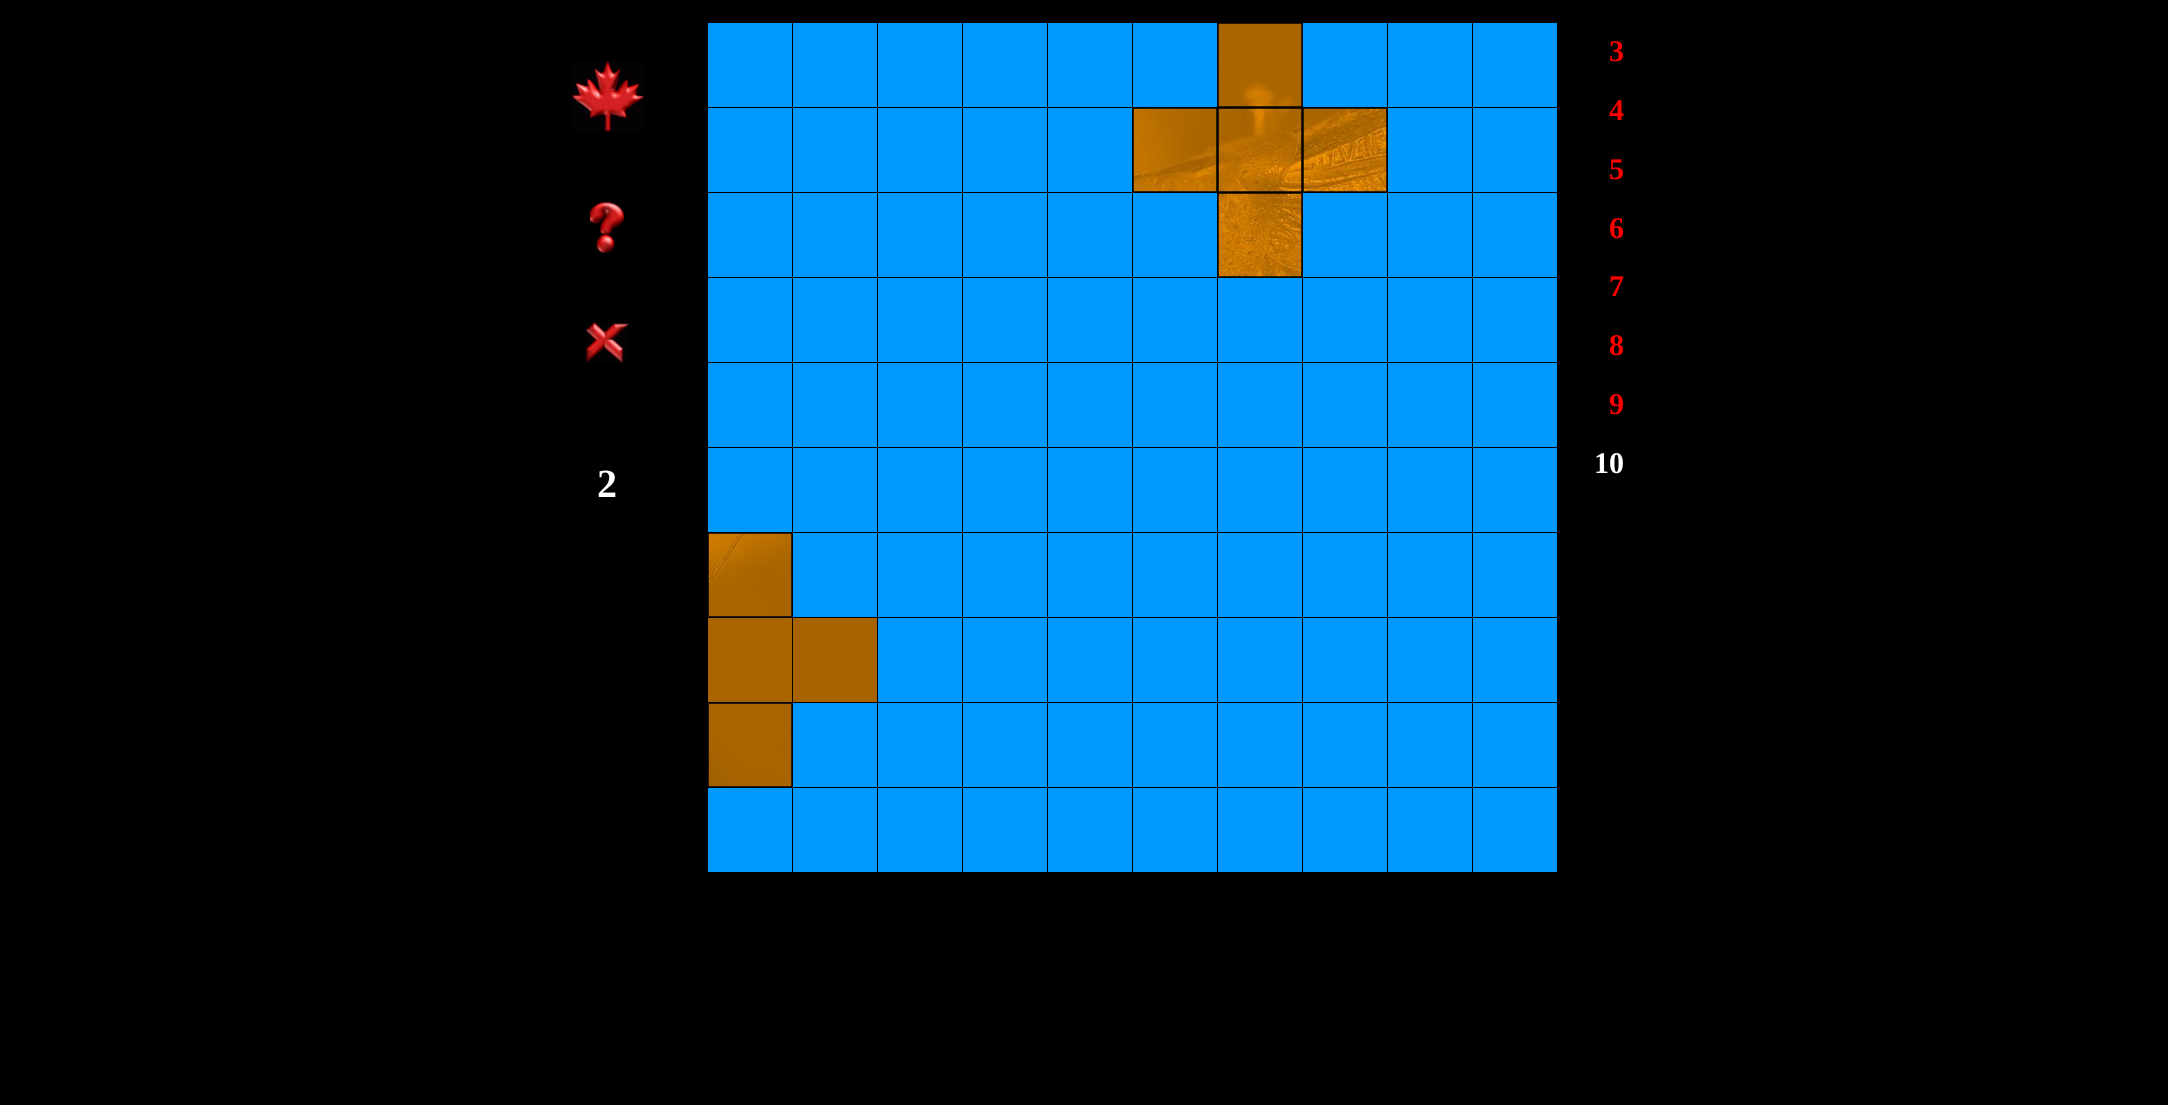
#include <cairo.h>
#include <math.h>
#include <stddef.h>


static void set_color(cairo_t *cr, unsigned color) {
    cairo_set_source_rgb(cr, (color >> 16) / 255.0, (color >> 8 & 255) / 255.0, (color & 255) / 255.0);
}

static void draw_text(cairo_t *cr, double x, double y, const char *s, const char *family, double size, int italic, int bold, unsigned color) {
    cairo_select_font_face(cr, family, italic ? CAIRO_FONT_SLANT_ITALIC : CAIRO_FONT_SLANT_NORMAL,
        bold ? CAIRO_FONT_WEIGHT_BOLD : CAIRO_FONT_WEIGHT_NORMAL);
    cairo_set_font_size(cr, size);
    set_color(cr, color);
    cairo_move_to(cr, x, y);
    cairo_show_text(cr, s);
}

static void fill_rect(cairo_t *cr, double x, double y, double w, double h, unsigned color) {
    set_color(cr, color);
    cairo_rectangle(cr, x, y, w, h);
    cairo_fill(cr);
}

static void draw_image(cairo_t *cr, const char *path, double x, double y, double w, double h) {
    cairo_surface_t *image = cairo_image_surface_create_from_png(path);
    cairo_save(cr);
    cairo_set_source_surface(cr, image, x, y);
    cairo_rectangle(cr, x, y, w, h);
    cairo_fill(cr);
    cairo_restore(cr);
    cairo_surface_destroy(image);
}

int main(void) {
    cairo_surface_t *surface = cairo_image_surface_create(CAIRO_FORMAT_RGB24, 2168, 1105);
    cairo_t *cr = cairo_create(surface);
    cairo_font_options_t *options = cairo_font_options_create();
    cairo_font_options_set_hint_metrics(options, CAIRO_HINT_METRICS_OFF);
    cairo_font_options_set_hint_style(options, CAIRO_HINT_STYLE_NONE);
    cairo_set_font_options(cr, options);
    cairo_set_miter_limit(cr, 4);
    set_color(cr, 0x000000);
    cairo_paint(cr);
    fill_rect(cr, 708, 23, 84, 84, 0x0099FF);
    fill_rect(cr, 793, 23, 84, 84, 0x0099FF);
    fill_rect(cr, 878, 23, 84, 84, 0x0099FF);
    fill_rect(cr, 963, 23, 84, 84, 0x0099FF);
    fill_rect(cr, 1048, 23, 84, 84, 0x0099FF);
    fill_rect(cr, 1133, 23, 84, 84, 0x0099FF);
    draw_image(cr, "assets/img1.png", 1218, 23, 84, 84);
    fill_rect(cr, 1303, 23, 84, 84, 0x0099FF);
    fill_rect(cr, 1388, 23, 84, 84, 0x0099FF);
    fill_rect(cr, 1473, 23, 84, 84, 0x0099FF);
    fill_rect(cr, 708, 108, 84, 84, 0x0099FF);
    fill_rect(cr, 793, 108, 84, 84, 0x0099FF);
    fill_rect(cr, 878, 108, 84, 84, 0x0099FF);
    fill_rect(cr, 963, 108, 84, 84, 0x0099FF);
    fill_rect(cr, 1048, 108, 84, 84, 0x0099FF);
    draw_image(cr, "assets/img2.png", 1133, 108, 84, 84);
    draw_image(cr, "assets/img3.png", 1218, 108, 84, 84);
    draw_image(cr, "assets/img4.png", 1303, 108, 84, 84);
    fill_rect(cr, 1388, 108, 84, 84, 0x0099FF);
    fill_rect(cr, 1473, 108, 84, 84, 0x0099FF);
    fill_rect(cr, 708, 193, 84, 84, 0x0099FF);
    fill_rect(cr, 793, 193, 84, 84, 0x0099FF);
    fill_rect(cr, 878, 193, 84, 84, 0x0099FF);
    fill_rect(cr, 963, 193, 84, 84, 0x0099FF);
    fill_rect(cr, 1048, 193, 84, 84, 0x0099FF);
    fill_rect(cr, 1133, 193, 84, 84, 0x0099FF);
    draw_image(cr, "assets/img5.png", 1218, 193, 84, 84);
    fill_rect(cr, 1303, 193, 84, 84, 0x0099FF);
    fill_rect(cr, 1388, 193, 84, 84, 0x0099FF);
    fill_rect(cr, 1473, 193, 84, 84, 0x0099FF);
    fill_rect(cr, 708, 278, 84, 84, 0x0099FF);
    fill_rect(cr, 793, 278, 84, 84, 0x0099FF);
    fill_rect(cr, 878, 278, 84, 84, 0x0099FF);
    fill_rect(cr, 963, 278, 84, 84, 0x0099FF);
    fill_rect(cr, 1048, 278, 84, 84, 0x0099FF);
    fill_rect(cr, 1133, 278, 84, 84, 0x0099FF);
    fill_rect(cr, 1218, 278, 84, 84, 0x0099FF);
    fill_rect(cr, 1303, 278, 84, 84, 0x0099FF);
    fill_rect(cr, 1388, 278, 84, 84, 0x0099FF);
    fill_rect(cr, 1473, 278, 84, 84, 0x0099FF);
    fill_rect(cr, 708, 363, 84, 84, 0x0099FF);
    fill_rect(cr, 793, 363, 84, 84, 0x0099FF);
    fill_rect(cr, 878, 363, 84, 84, 0x0099FF);
    fill_rect(cr, 963, 363, 84, 84, 0x0099FF);
    fill_rect(cr, 1048, 363, 84, 84, 0x0099FF);
    fill_rect(cr, 1133, 363, 84, 84, 0x0099FF);
    fill_rect(cr, 1218, 363, 84, 84, 0x0099FF);
    fill_rect(cr, 1303, 363, 84, 84, 0x0099FF);
    fill_rect(cr, 1388, 363, 84, 84, 0x0099FF);
    fill_rect(cr, 1473, 363, 84, 84, 0x0099FF);
    fill_rect(cr, 708, 448, 84, 84, 0x0099FF);
    fill_rect(cr, 793, 448, 84, 84, 0x0099FF);
    fill_rect(cr, 878, 448, 84, 84, 0x0099FF);
    fill_rect(cr, 963, 448, 84, 84, 0x0099FF);
    fill_rect(cr, 1048, 448, 84, 84, 0x0099FF);
    fill_rect(cr, 1133, 448, 84, 84, 0x0099FF);
    fill_rect(cr, 1218, 448, 84, 84, 0x0099FF);
    fill_rect(cr, 1303, 448, 84, 84, 0x0099FF);
    fill_rect(cr, 1388, 448, 84, 84, 0x0099FF);
    fill_rect(cr, 1473, 448, 84, 84, 0x0099FF);
    draw_image(cr, "assets/img6.png", 708, 533, 84, 84);
    fill_rect(cr, 793, 533, 84, 84, 0x0099FF);
    fill_rect(cr, 878, 533, 84, 84, 0x0099FF);
    fill_rect(cr, 963, 533, 84, 84, 0x0099FF);
    fill_rect(cr, 1048, 533, 84, 84, 0x0099FF);
    fill_rect(cr, 1133, 533, 84, 84, 0x0099FF);
    fill_rect(cr, 1218, 533, 84, 84, 0x0099FF);
    fill_rect(cr, 1303, 533, 84, 84, 0x0099FF);
    fill_rect(cr, 1388, 533, 84, 84, 0x0099FF);
    fill_rect(cr, 1473, 533, 84, 84, 0x0099FF);
    fill_rect(cr, 708, 618, 84, 84, 0xA86401);
    fill_rect(cr, 793, 618, 84, 84, 0xA76300);
    fill_rect(cr, 878, 618, 84, 84, 0x0099FF);
    fill_rect(cr, 963, 618, 84, 84, 0x0099FF);
    fill_rect(cr, 1048, 618, 84, 84, 0x0099FF);
    fill_rect(cr, 1133, 618, 84, 84, 0x0099FF);
    fill_rect(cr, 1218, 618, 84, 84, 0x0099FF);
    fill_rect(cr, 1303, 618, 84, 84, 0x0099FF);
    fill_rect(cr, 1388, 618, 84, 84, 0x0099FF);
    fill_rect(cr, 1473, 618, 84, 84, 0x0099FF);
    draw_image(cr, "assets/img7.png", 708, 703, 84, 84);
    fill_rect(cr, 793, 703, 84, 84, 0x0099FF);
    fill_rect(cr, 878, 703, 84, 84, 0x0099FF);
    fill_rect(cr, 963, 703, 84, 84, 0x0099FF);
    fill_rect(cr, 1048, 703, 84, 84, 0x0099FF);
    fill_rect(cr, 1133, 703, 84, 84, 0x0099FF);
    fill_rect(cr, 1218, 703, 84, 84, 0x0099FF);
    fill_rect(cr, 1303, 703, 84, 84, 0x0099FF);
    fill_rect(cr, 1388, 703, 84, 84, 0x0099FF);
    fill_rect(cr, 1473, 703, 84, 84, 0x0099FF);
    fill_rect(cr, 708, 788, 84, 84, 0x0099FF);
    fill_rect(cr, 793, 788, 84, 84, 0x0099FF);
    fill_rect(cr, 878, 788, 84, 84, 0x0099FF);
    fill_rect(cr, 963, 788, 84, 84, 0x0099FF);
    fill_rect(cr, 1048, 788, 84, 84, 0x0099FF);
    fill_rect(cr, 1133, 788, 84, 84, 0x0099FF);
    fill_rect(cr, 1218, 788, 84, 84, 0x0099FF);
    fill_rect(cr, 1303, 788, 84, 84, 0x0099FF);
    fill_rect(cr, 1388, 788, 84, 84, 0x0099FF);
    fill_rect(cr, 1473, 788, 84, 84, 0x0099FF);
    draw_text(cr, 1609, 61, "3", "Liberation Serif", 30, 0, 1, 0xFF0000);
    draw_text(cr, 1609, 120, "4", "Liberation Serif", 30, 0, 1, 0xFF0000);
    draw_text(cr, 1609, 179, "5", "Liberation Serif", 30, 0, 1, 0xFF0000);
    draw_text(cr, 1609, 238, "6", "Liberation Serif", 30, 0, 1, 0xFF0000);
    draw_text(cr, 1609, 296, "7", "Liberation Serif", 30, 0, 1, 0xFF0000);
    draw_text(cr, 1609, 355, "8", "Liberation Serif", 30, 0, 1, 0xFF0000);
    draw_text(cr, 1609, 414, "9", "Liberation Serif", 30, 0, 1, 0xFF0000);
    draw_text(cr, 1594, 473, "10", "Liberation Serif", 30, 0, 1, 0xFFFFFF);
    draw_image(cr, "assets/img8.png", 572, 61, 72, 71);
    draw_image(cr, "assets/img9.png", 590, 202, 34, 51);
    draw_image(cr, "assets/img10.png", 586, 322, 43, 41);
    draw_text(cr, 597, 497, "2", "Liberation Serif", 40, 0, 1, 0xFFFFFF);
    cairo_surface_write_to_png(surface, "output.png");
    cairo_font_options_destroy(options);
    cairo_destroy(cr);
    cairo_surface_destroy(surface);
    return 0;
}
